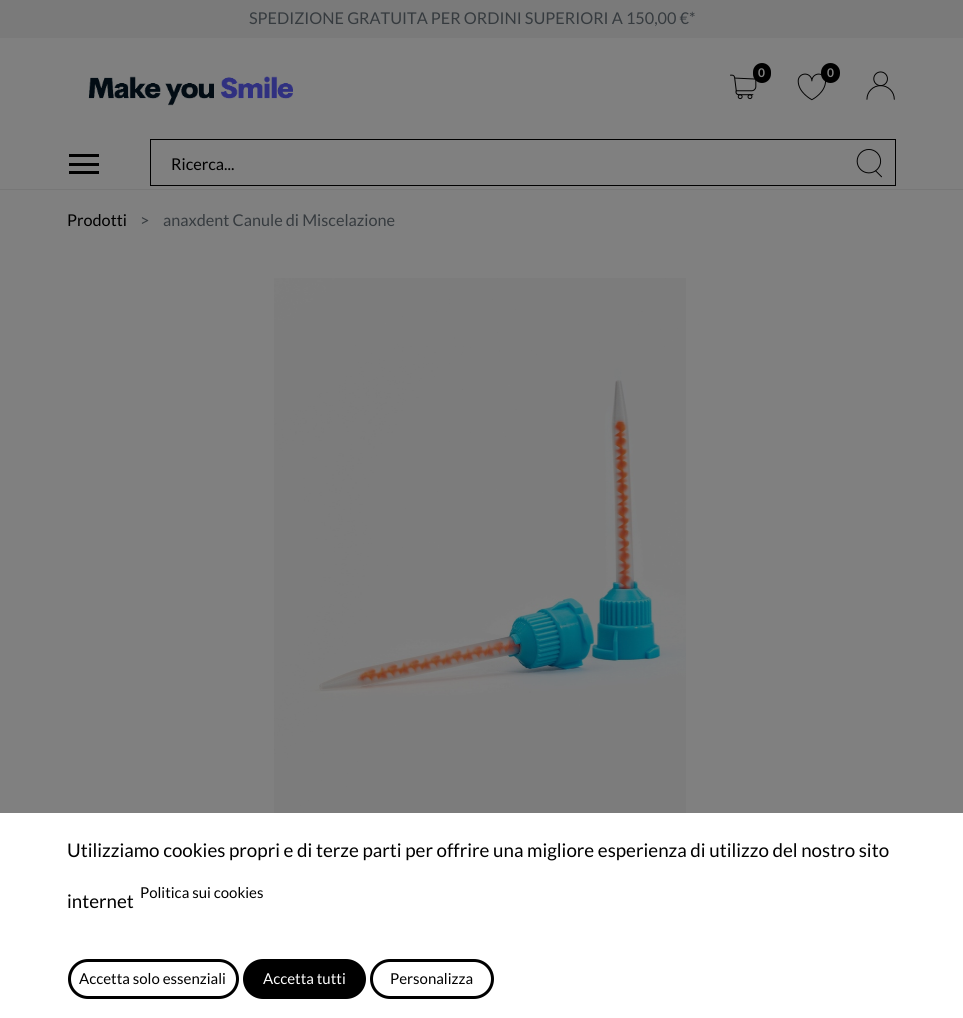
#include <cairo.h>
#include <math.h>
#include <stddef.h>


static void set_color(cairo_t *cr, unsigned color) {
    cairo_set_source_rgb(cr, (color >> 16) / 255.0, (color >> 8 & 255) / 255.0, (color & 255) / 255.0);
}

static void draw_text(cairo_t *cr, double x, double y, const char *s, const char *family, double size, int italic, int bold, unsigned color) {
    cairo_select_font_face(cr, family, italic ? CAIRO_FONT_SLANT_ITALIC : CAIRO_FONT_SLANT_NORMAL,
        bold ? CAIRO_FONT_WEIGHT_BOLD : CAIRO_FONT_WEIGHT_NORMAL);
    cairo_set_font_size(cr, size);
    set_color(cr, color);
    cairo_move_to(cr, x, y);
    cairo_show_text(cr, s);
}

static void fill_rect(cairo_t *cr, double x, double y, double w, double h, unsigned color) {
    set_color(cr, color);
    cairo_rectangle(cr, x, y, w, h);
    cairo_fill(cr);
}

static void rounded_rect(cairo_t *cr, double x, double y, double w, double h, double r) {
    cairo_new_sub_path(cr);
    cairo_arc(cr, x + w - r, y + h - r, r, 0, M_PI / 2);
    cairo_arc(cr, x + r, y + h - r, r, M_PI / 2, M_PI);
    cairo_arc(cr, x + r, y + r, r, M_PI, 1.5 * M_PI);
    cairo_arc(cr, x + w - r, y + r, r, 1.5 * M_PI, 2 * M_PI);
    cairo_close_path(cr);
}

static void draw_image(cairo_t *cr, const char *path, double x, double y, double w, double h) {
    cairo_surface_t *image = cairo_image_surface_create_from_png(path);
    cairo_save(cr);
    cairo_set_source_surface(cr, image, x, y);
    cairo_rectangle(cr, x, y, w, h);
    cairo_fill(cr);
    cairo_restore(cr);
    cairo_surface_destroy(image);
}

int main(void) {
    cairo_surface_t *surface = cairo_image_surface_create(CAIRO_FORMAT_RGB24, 963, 1018);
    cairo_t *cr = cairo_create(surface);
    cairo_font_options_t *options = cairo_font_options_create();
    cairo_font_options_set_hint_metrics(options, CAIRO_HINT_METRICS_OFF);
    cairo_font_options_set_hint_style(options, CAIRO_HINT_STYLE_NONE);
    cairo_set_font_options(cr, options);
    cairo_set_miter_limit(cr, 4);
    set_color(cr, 0x808080);
    cairo_paint(cr);
    fill_rect(cr, 0, 0, 963, 38, 0x7A7A7A);
    draw_text(cr, 249, 24, "SPEDIZIONE GRATUITA PER ORDINI SUPERIORI A 150,00 €*", "Lato", 16.25, 0, 0, 0x363B3F);
    draw_image(cr, "assets/img1.png", 730, 74, 27, 26);
    set_color(cr, 0x000000);
    rounded_rect(cr, 753, 63, 18, 20, 9);
    cairo_fill(cr);
    draw_text(cr, 758, 77, "0", "Lato", 12, 0, 1, 0x808080);
    draw_image(cr, "assets/img2.png", 797, 73, 29, 28);
    set_color(cr, 0x000000);
    rounded_rect(cr, 821, 63, 19, 20, 9.5);
    cairo_fill(cr);
    draw_text(cr, 827, 77, "0", "Lato", 12, 0, 1, 0x808080);
    draw_image(cr, "assets/img3.png", 866, 71, 29, 29);
    draw_image(cr, "assets/img4.png", 88, 76, 205, 30);
    fill_rect(cr, 0, 189, 963, 1, 0x777777);
    fill_rect(cr, 69, 154, 30, 3, 0x000000);
    fill_rect(cr, 69, 163, 30, 3, 0x000000);
    fill_rect(cr, 69, 171, 30, 3, 0x000000);
    fill_rect(cr, 150, 139, 746, 1, 0x000000);
    fill_rect(cr, 150, 185, 695, 1, 0x000000);
    fill_rect(cr, 150, 139, 1, 47, 0x000000);
    draw_text(cr, 171, 170, "Ricerca...", "Lato", 16.25, 0, 0, 0x000000);
    fill_rect(cr, 895, 139, 1, 47, 0x000000);
    fill_rect(cr, 844, 185, 52, 1, 0x000000);
    draw_image(cr, "assets/img5.png", 856, 149, 26, 29);
    draw_text(cr, 67, 226, "Prodotti", "Lato", 16.25, 0, 0, 0x000000);
    draw_text(cr, 140, 226, ">", "Lato", 16.25, 0, 0, 0x363B3F);
    draw_text(cr, 163, 226, "anaxdent Canule di Miscelazione", "Lato", 16.25, 0, 0, 0x363B3F);
    draw_image(cr, "assets/img6.png", 274, 278, 412, 535);
    fill_rect(cr, 0, 813, 963, 205, 0xFFFFFF);
    draw_text(cr, 67, 857, "Utilizziamo cookies propri e di terze parti per offrire una migliore esperienza di utilizzo del nostro sito", "Lato", 18.75, 0, 0, 0x000000);
    draw_text(cr, 140, 898, "Politica sui cookies", "Lato", 15, 0, 0, 0x000000);
    draw_text(cr, 67, 908, "internet", "Lato", 18.75, 0, 0, 0x000000);
    rounded_rect(cr, 69.5, 960.5, 168, 37, 18.5);
    cairo_set_line_width(cr, 3);
    cairo_stroke(cr);
    draw_text(cr, 79, 984, "Accetta solo essenziali", "Lato", 15, 0, 0, 0x000000);
    rounded_rect(cr, 244.5, 960.5, 120, 37, 18.5);
    cairo_fill_preserve(cr);
    cairo_stroke(cr);
    draw_text(cr, 263, 984, "Accetta tutti", "Lato", 15, 0, 0, 0xFFFFFF);
    rounded_rect(cr, 371.5, 960.5, 121, 37, 18.5);
    set_color(cr, 0x000000);
    cairo_stroke(cr);
    draw_text(cr, 390, 984, "Personalizza", "Lato", 15, 0, 0, 0x000000);
    cairo_surface_write_to_png(surface, "output.png");
    cairo_font_options_destroy(options);
    cairo_destroy(cr);
    cairo_surface_destroy(surface);
    return 0;
}
